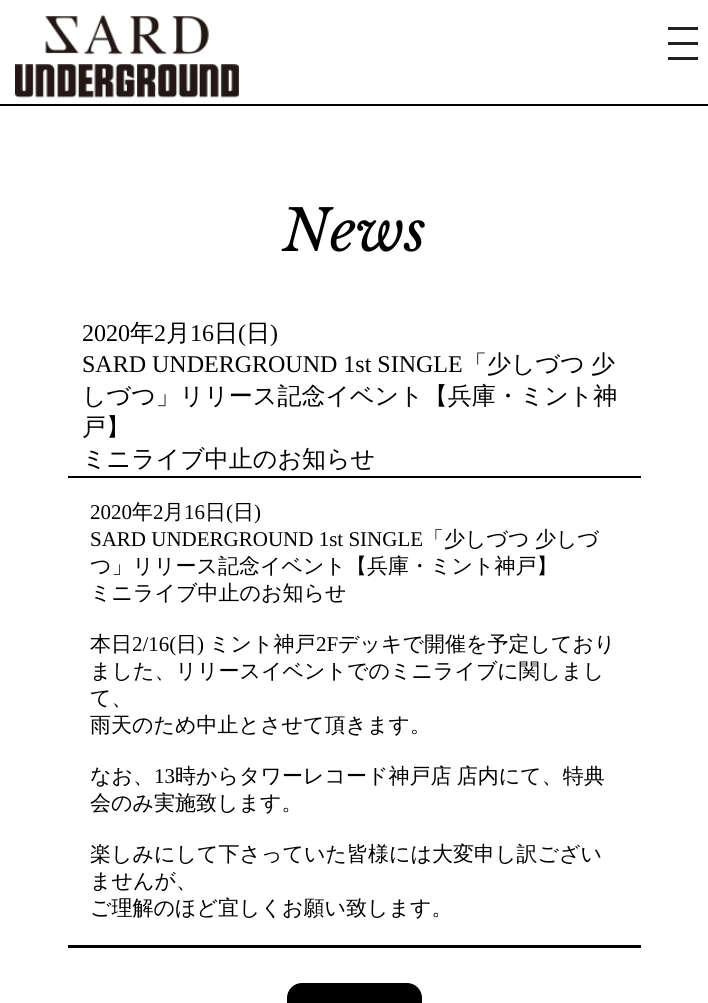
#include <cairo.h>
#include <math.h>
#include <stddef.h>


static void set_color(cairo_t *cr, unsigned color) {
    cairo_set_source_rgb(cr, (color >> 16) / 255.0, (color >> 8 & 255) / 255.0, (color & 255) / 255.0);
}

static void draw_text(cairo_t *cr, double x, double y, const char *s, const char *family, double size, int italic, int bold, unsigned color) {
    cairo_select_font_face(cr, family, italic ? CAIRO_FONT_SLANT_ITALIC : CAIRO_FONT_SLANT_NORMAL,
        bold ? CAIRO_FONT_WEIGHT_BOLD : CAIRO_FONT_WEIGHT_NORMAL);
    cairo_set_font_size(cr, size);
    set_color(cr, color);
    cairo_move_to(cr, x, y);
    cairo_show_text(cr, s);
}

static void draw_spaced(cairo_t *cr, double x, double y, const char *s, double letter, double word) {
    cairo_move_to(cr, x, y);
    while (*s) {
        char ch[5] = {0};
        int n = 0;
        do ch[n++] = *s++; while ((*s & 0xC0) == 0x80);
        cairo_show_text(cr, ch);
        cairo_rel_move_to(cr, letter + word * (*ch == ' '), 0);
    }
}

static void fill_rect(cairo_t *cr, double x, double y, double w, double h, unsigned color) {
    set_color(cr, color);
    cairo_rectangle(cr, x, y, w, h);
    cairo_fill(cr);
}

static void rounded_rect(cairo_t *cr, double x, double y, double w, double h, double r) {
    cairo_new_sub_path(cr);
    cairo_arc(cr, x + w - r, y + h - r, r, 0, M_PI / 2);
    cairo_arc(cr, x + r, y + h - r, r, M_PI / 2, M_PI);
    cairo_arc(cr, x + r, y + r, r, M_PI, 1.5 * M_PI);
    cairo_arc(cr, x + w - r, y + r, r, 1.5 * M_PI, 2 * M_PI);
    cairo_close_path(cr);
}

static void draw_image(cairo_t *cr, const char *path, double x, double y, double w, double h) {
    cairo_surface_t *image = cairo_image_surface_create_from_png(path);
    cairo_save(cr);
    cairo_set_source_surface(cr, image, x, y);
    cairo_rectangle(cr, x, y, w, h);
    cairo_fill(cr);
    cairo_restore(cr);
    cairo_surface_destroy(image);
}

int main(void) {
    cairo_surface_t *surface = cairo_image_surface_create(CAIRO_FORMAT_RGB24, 708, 1003);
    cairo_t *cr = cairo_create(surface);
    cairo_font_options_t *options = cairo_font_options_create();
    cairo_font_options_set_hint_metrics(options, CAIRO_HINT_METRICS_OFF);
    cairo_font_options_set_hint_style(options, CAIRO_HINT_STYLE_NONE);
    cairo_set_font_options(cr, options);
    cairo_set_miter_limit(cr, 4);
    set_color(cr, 0xFFFFFF);
    cairo_paint(cr);
    fill_rect(cr, 0, 104, 708, 2, 0x000000);
    draw_image(cr, "assets/img1.png", 15, 15, 225, 83);
    fill_rect(cr, 668, 42, 30, 3, 0x222222);
    fill_rect(cr, 668, 27, 30, 3, 0x222222);
    fill_rect(cr, 668, 57, 30, 3, 0x222222);
    draw_text(cr, 282, 251, "News", "Libre Baskerville", 57, 1, 0, 0x000000);
    fill_rect(cr, 68, 476, 573, 2, 0x000000);
    draw_text(cr, 82, 341, "2020", "Liberation Serif", 24, 0, 0, 0x000000);
    draw_text(cr, 130, 341, "年", "WenQuanYi Zen Hei Medium", 24, 0, 0, 0x000000);
    draw_text(cr, 154, 341, "2", "Liberation Serif", 24, 0, 0, 0x000000);
    draw_text(cr, 166, 341, "月", "WenQuanYi Zen Hei Medium", 24, 0, 0, 0x000000);
    draw_text(cr, 190, 341, "16", "Liberation Serif", 24, 0, 0, 0x000000);
    draw_text(cr, 214, 341, "日", "WenQuanYi Zen Hei Medium", 24, 0, 0, 0x000000);
    draw_text(cr, 238, 341, "(", "Liberation Serif", 24, 0, 0, 0x000000);
    draw_text(cr, 246, 341, "日", "WenQuanYi Zen Hei Medium", 24, 0, 0, 0x000000);
    draw_text(cr, 270, 341, ")", "Liberation Serif", 24, 0, 0, 0x000000);
    draw_text(cr, 82, 372, "SARD UNDERGROUND 1st SINGLE", "Liberation Serif", 24, 0, 0, 0x000000);
    draw_text(cr, 463, 372, "「少しづつ", "WenQuanYi Zen Hei Medium", 24, 0, 0, 0x000000);
    draw_text(cr, 591, 372, "少", "WenQuanYi Zen Hei Medium", 24, 0, 0, 0x000000);
    draw_text(cr, 82, 404, "しづつ」リリース記念イベント【兵庫・ミント神", "WenQuanYi Zen Hei Medium", 24, 0, 0, 0x000000);
    draw_text(cr, 82, 435, "戸】", "WenQuanYi Zen Hei Medium", 24, 0, 0, 0x000000);
    draw_text(cr, 82, 467, "ミニライブ中止のお知らせ", "WenQuanYi Zen Hei Medium", 24, 0, 0, 0x000000);
    fill_rect(cr, 68, 945, 573, 3, 0x000000);
    draw_text(cr, 90, 519, "2020", "Liberation Serif", 21, 0, 0, 0x000000);
    draw_text(cr, 132, 519, "年", "WenQuanYi Zen Hei Medium", 21, 0, 0, 0x000000);
    draw_text(cr, 153, 519, "2", "Liberation Serif", 21, 0, 0, 0x000000);
    draw_text(cr, 163, 519, "月", "WenQuanYi Zen Hei Medium", 21, 0, 0, 0x000000);
    draw_text(cr, 184, 519, "16", "Liberation Serif", 21, 0, 0, 0x000000);
    draw_text(cr, 205, 519, "日", "WenQuanYi Zen Hei Medium", 21, 0, 0, 0x000000);
    draw_text(cr, 226, 519, "(", "Liberation Serif", 21, 0, 0, 0x000000);
    draw_text(cr, 233, 519, "日", "WenQuanYi Zen Hei Medium", 21, 0, 0, 0x000000);
    draw_text(cr, 254, 519, ")", "Liberation Serif", 21, 0, 0, 0x000000);
    draw_text(cr, 90, 546, "SARD UNDERGROUND 1st SINGLE", "Liberation Serif", 21, 0, 0, 0x000000);
    draw_text(cr, 423, 546, "「少しづつ", "WenQuanYi Zen Hei Medium", 21, 0, 0, 0x000000);
    draw_text(cr, 535, 546, "少しづ", "WenQuanYi Zen Hei Medium", 21, 0, 0, 0x000000);
    draw_text(cr, 90, 573, "つ」リリース記念イベント【兵庫・ミント神戸】", "WenQuanYi Zen Hei Medium", 21, 0, 0, 0x000000);
    draw_text(cr, 90, 600, "ミニライブ中止のお知らせ", "WenQuanYi Zen Hei Medium", 21, 0, 0, 0x000000);
    draw_text(cr, 90, 651, "本日", "WenQuanYi Zen Hei Medium", 21, 0, 0, 0x000000);
    draw_text(cr, 132, 651, "2/16(", "Liberation Serif", 21, 0, 0, 0x000000);
    draw_text(cr, 176, 651, "日", "WenQuanYi Zen Hei Medium", 21, 0, 0, 0x000000);
    draw_text(cr, 197, 651, ")", "Liberation Serif", 21, 0, 0, 0x000000);
    draw_text(cr, 209, 651, "ミント神戸", "WenQuanYi Zen Hei Medium", 21, 0, 0, 0x000000);
    draw_text(cr, 316, 651, "2F", "Liberation Serif", 21, 0, 0, 0x000000);
    draw_text(cr, 338, 651, "デッキで開催を予定しており", "WenQuanYi Zen Hei Medium", 21, 0, 0, 0x000000);
    draw_text(cr, 90, 678, "ました、リリースイベントでのミニライブに関しまし", "WenQuanYi Zen Hei Medium", 21, 0, 0, 0x000000);
    draw_text(cr, 90, 705, "て、", "WenQuanYi Zen Hei Medium", 21, 0, 0, 0x000000);
    draw_text(cr, 90, 732, "雨天のため中止とさせて頂きます。", "WenQuanYi Zen Hei Medium", 21, 0, 0, 0x000000);
    draw_text(cr, 90, 783, "なお、", "WenQuanYi Zen Hei Medium", 21, 0, 0, 0x000000);
    draw_text(cr, 154, 783, "13", "Liberation Serif", 21, 0, 0, 0x000000);
    cairo_select_font_face(cr, "WenQuanYi Zen Hei Medium", CAIRO_FONT_SLANT_NORMAL, CAIRO_FONT_WEIGHT_NORMAL);
    draw_spaced(cr, 175, 783, "時からタワーレコード神戸店 店内にて、特典", 0, -1);
    draw_text(cr, 90, 810, "会のみ実施致します。", "WenQuanYi Zen Hei Medium", 21, 0, 0, 0x000000);
    draw_text(cr, 90, 861, "楽しみにして下さっていた皆様には大変申し訳ござい", "WenQuanYi Zen Hei Medium", 21, 0, 0, 0x000000);
    draw_text(cr, 90, 888, "ませんが、", "WenQuanYi Zen Hei Medium", 21, 0, 0, 0x000000);
    draw_text(cr, 90, 915, "ご理解のほど宜しくお願い致します。", "WenQuanYi Zen Hei Medium", 21, 0, 0, 0x000000);
    rounded_rect(cr, 287, 983, 135, 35, 15);
    cairo_fill(cr);
    cairo_surface_write_to_png(surface, "output.png");
    cairo_font_options_destroy(options);
    cairo_destroy(cr);
    cairo_surface_destroy(surface);
    return 0;
}
